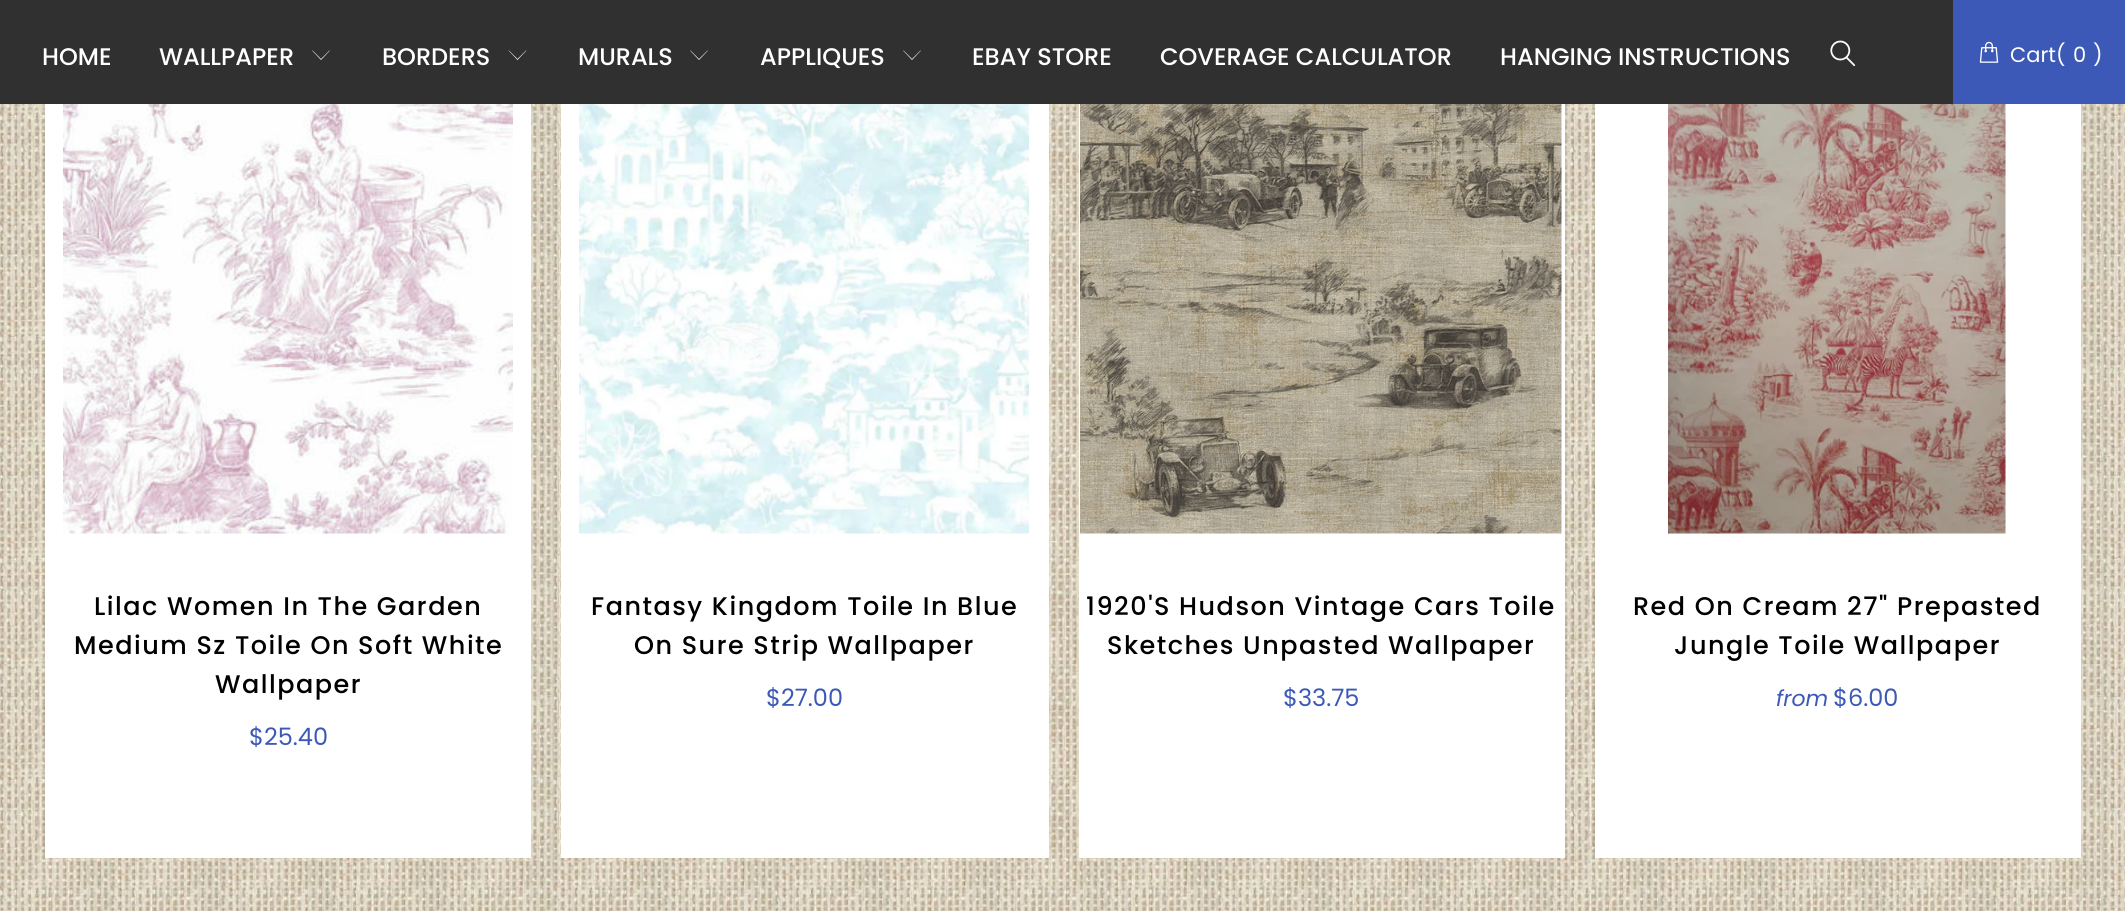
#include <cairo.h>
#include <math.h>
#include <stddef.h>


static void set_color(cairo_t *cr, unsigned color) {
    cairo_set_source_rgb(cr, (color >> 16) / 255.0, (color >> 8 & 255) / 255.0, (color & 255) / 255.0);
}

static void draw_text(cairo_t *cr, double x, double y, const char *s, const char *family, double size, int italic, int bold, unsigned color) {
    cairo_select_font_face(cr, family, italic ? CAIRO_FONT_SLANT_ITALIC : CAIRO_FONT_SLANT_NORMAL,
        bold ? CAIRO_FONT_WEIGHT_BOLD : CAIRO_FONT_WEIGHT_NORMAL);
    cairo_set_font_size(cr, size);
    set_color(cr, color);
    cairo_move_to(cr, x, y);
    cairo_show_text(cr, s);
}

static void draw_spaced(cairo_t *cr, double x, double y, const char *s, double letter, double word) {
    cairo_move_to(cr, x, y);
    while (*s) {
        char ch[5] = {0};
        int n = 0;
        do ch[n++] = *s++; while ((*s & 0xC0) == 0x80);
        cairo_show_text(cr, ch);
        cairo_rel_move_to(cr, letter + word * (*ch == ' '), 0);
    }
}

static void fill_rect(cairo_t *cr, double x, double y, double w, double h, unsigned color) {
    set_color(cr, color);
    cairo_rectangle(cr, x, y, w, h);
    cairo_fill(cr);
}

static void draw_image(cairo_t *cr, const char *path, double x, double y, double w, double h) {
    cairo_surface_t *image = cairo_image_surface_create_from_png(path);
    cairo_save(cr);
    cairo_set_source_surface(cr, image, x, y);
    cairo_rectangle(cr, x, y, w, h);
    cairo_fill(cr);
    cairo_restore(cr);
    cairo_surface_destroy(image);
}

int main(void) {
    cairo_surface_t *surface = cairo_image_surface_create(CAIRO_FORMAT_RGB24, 2125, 911);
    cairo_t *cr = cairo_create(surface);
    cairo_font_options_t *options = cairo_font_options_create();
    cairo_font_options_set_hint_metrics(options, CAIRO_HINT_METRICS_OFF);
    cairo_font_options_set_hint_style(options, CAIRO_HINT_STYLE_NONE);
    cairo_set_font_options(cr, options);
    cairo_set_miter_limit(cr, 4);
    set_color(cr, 0xFFFFFF);
    cairo_paint(cr);
    draw_image(cr, "assets/img1.png", 0, 104, 2125, 807);
    fill_rect(cr, 0, 0, 1953, 104, 0x303030);
    draw_text(cr, 42, 65, "HOME", "Poppins Medium", 24, 0, 0, 0xFFFFFF);
    draw_text(cr, 159, 65, "WALLPAPER", "Poppins Medium", 24, 0, 0, 0xFFFFFF);
    cairo_new_path(cr);
    cairo_move_to(cr, 321, 60);
    cairo_line_to(cr, 312, 50.5);
    cairo_line_to(cr, 312.5, 50.5);
    cairo_line_to(cr, 321, 59);
    cairo_line_to(cr, 329.5, 50.5);
    cairo_line_to(cr, 330, 50.5);
    cairo_close_path(cr);
    cairo_fill(cr);
    draw_text(cr, 382, 65, "BORDERS", "Poppins Medium", 24, 0, 0, 0xFFFFFF);
    cairo_new_path(cr);
    cairo_move_to(cr, 517.5, 60);
    cairo_line_to(cr, 508.5, 50.5);
    cairo_line_to(cr, 509, 50.5);
    cairo_line_to(cr, 517.5, 59);
    cairo_line_to(cr, 526, 50.5);
    cairo_line_to(cr, 526.5, 50.5);
    cairo_close_path(cr);
    cairo_fill(cr);
    draw_text(cr, 578, 65, "MURALS", "Poppins Medium", 24, 0, 0, 0xFFFFFF);
    cairo_new_path(cr);
    cairo_move_to(cr, 699, 60);
    cairo_line_to(cr, 690, 50.5);
    cairo_line_to(cr, 690.5, 50.5);
    cairo_line_to(cr, 699, 59);
    cairo_line_to(cr, 707.5, 50.5);
    cairo_line_to(cr, 708, 50.5);
    cairo_close_path(cr);
    cairo_fill(cr);
    draw_text(cr, 760, 65, "APPLIQUES", "Poppins Medium", 24, 0, 0, 0xFFFFFF);
    cairo_new_path(cr);
    cairo_move_to(cr, 912, 60);
    cairo_line_to(cr, 903, 50.5);
    cairo_line_to(cr, 903.5, 50.5);
    cairo_line_to(cr, 912, 59);
    cairo_line_to(cr, 920.5, 50.5);
    cairo_line_to(cr, 921, 50.5);
    cairo_close_path(cr);
    cairo_fill(cr);
    draw_text(cr, 972, 65, "EBAY STORE", "Poppins Medium", 24, 0, 0, 0xFFFFFF);
    draw_text(cr, 1160, 65, "COVERAGE CALCULATOR", "Poppins Medium", 24, 0, 0, 0xFFFFFF);
    draw_text(cr, 1500, 65, "HANGING INSTRUCTIONS", "Poppins Medium", 24, 0, 0, 0xFFFFFF);
    draw_image(cr, "assets/img2.png", 1830, 40, 26, 27);
    fill_rect(cr, 1953, 0, 172, 104, 0x3C59B7);
    draw_image(cr, "assets/img3.png", 1979, 41, 20, 22);
    draw_text(cr, 2010, 62, "Cart(", "Poppins", 21, 0, 0, 0xFFFFFF);
    draw_text(cr, 2073, 62, "0", "Poppins", 21, 0, 0, 0xFFFFFF);
    draw_text(cr, 2093, 62, ")", "Poppins", 21, 0, 0, 0xFFFFFF);
    fill_rect(cr, 45, 104, 486, 754, 0xFFFFFF);
    draw_image(cr, "assets/img4.png", 63, 104, 450, 430);
    cairo_select_font_face(cr, "Poppins Medium", CAIRO_FONT_SLANT_NORMAL, CAIRO_FONT_WEIGHT_NORMAL);
    cairo_set_font_size(cr, 25.5);
    set_color(cr, 0x000000);
    draw_spaced(cr, 94, 615, "Lilac Women In The Garden", 1.5, 0);
    draw_spaced(cr, 74, 654, "Medium Sz Toile On Soft White", 1.5, 0);
    draw_spaced(cr, 215, 693, "Wallpaper", 1.5, 0);
    draw_text(cr, 249, 745, "$25.40", "Poppins", 24, 0, 0, 0x3C59B7);
    fill_rect(cr, 561, 104, 488, 754, 0xFFFFFF);
    draw_image(cr, "assets/img5.png", 579, 104, 450, 430);
    cairo_select_font_face(cr, "Poppins Medium", CAIRO_FONT_SLANT_NORMAL, CAIRO_FONT_WEIGHT_NORMAL);
    cairo_set_font_size(cr, 25.5);
    set_color(cr, 0x000000);
    draw_spaced(cr, 591, 615, "Fantasy Kingdom Toile In Blue", 1.5, 0);
    draw_spaced(cr, 634, 654, "On Sure Strip Wallpaper", 1.5, 0);
    draw_text(cr, 766, 706, "$27.00", "Poppins", 24, 0, 0, 0x3C59B7);
    fill_rect(cr, 1079, 104, 486, 754, 0xFFFFFF);
    draw_image(cr, "assets/img6.png", 1080, 104, 482, 430);
    cairo_select_font_face(cr, "Poppins Medium", CAIRO_FONT_SLANT_NORMAL, CAIRO_FONT_WEIGHT_NORMAL);
    cairo_set_font_size(cr, 25.5);
    set_color(cr, 0x000000);
    draw_spaced(cr, 1086, 615, "1920'S Hudson Vintage Cars Toile", 1.5, 0);
    draw_spaced(cr, 1107, 654, "Sketches Unpasted Wallpaper", 1.5, 0);
    draw_text(cr, 1283, 706, "$33.75", "Poppins", 24, 0, 0, 0x3C59B7);
    fill_rect(cr, 1595, 104, 486, 754, 0xFFFFFF);
    draw_image(cr, "assets/img7.png", 1668, 104, 338, 430);
    cairo_select_font_face(cr, "Poppins Medium", CAIRO_FONT_SLANT_NORMAL, CAIRO_FONT_WEIGHT_NORMAL);
    cairo_set_font_size(cr, 25.5);
    set_color(cr, 0x000000);
    draw_spaced(cr, 1633, 615, "Red On Cream 27\" Prepasted", 1.5, 0);
    draw_spaced(cr, 1674, 654, "Jungle Toile Wallpaper", 1.5, 0);
    draw_text(cr, 1776, 706, "from", "Poppins", 22, 1, 0, 0x3C59B7);
    draw_text(cr, 1833, 706, "$6.00", "Poppins", 24, 0, 0, 0x3C59B7);
    cairo_surface_write_to_png(surface, "output.png");
    cairo_font_options_destroy(options);
    cairo_destroy(cr);
    cairo_surface_destroy(surface);
    return 0;
}
